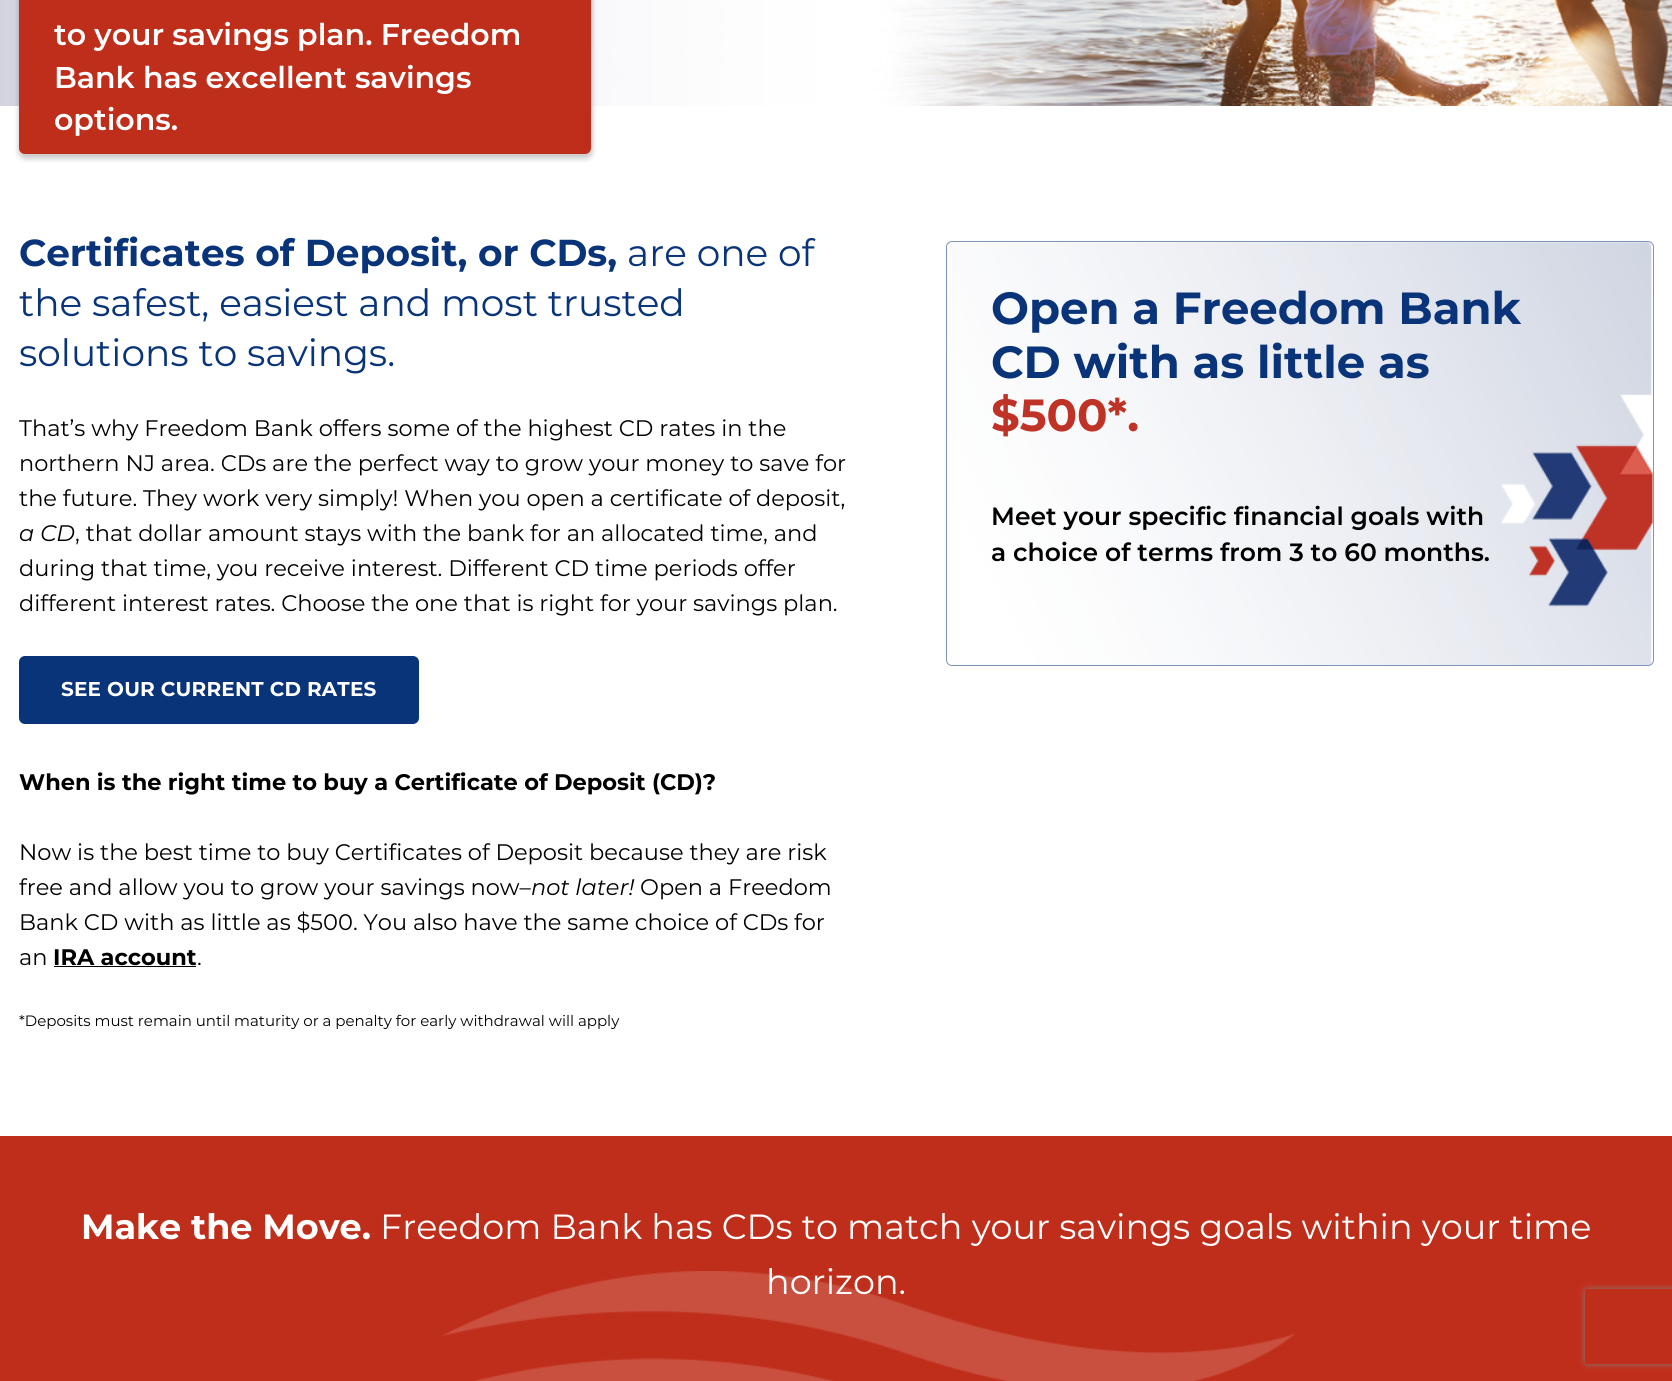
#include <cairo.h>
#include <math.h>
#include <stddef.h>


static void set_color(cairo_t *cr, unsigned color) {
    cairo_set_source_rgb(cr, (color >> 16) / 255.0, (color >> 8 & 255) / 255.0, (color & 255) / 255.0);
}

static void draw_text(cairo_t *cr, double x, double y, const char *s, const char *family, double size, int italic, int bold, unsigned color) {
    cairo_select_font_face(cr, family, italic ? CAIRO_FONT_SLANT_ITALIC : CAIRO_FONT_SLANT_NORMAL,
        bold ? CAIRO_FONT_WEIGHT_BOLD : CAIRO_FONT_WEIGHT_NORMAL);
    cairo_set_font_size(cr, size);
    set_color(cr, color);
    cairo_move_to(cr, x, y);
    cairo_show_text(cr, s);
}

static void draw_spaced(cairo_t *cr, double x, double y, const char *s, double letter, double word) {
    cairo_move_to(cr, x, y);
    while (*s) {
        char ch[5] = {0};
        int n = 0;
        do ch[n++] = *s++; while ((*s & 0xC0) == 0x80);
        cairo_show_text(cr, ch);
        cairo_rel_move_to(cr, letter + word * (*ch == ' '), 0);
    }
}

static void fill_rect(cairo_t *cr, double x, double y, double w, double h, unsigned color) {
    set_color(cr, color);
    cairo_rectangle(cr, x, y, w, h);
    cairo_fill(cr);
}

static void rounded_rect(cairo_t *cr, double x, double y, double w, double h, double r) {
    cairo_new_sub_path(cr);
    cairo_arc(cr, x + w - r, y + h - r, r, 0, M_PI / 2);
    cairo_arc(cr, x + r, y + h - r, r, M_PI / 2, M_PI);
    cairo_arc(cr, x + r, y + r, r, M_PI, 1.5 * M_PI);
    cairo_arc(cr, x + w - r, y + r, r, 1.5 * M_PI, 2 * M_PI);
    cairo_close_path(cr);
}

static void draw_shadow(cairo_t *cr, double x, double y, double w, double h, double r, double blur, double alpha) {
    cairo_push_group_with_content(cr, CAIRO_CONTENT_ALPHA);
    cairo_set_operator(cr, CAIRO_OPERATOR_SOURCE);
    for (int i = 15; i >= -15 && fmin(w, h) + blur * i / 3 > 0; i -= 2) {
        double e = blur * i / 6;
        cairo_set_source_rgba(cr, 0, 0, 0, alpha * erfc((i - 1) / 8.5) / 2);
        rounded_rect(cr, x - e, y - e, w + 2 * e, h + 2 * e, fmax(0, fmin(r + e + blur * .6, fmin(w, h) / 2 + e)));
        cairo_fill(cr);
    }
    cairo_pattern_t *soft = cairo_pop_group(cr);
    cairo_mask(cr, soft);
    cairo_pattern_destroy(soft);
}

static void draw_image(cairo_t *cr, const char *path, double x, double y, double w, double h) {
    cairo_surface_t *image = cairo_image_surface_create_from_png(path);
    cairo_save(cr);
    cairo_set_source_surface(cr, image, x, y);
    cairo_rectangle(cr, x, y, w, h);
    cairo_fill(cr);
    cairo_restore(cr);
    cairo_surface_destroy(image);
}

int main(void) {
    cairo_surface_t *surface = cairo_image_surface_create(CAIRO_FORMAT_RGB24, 1672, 1381);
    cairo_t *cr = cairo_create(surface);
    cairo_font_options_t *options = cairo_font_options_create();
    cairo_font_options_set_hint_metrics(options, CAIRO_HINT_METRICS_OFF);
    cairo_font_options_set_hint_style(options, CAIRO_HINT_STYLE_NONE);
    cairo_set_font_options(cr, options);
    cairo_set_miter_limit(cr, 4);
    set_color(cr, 0xFFFFFF);
    cairo_paint(cr);
    draw_image(cr, "assets/img1.png", 0, 0, 1672, 106);
    set_color(cr, 0x000000);
    draw_shadow(cr, 18, -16, 575, 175, 8, 2.5, 0.2);
    set_color(cr, 0xBF2E1A);
    rounded_rect(cr, 19, -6, 572, 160, 6);
    cairo_fill(cr);
    draw_text(cr, 54, 45, "to your savings plan. Freedom", "Montserrat SemiBold", 30, 0, 0, 0xFFFFFF);
    draw_text(cr, 54, 88, "Bank has excellent savings", "Montserrat SemiBold", 30, 0, 0, 0xFFFFFF);
    draw_text(cr, 54, 130, "options.", "Montserrat SemiBold", 30, 0, 0, 0xFFFFFF);
    draw_text(cr, 19, 266, "Certificates of Deposit, or CDs,", "Montserrat", 37.5, 0, 1, 0x09347A);
    draw_text(cr, 627, 266, "are one of", "Montserrat", 37.5, 0, 0, 0x09347A);
    draw_text(cr, 19, 316, "the safest, easiest and most trusted", "Montserrat", 37.5, 0, 0, 0x09347A);
    draw_text(cr, 19, 366, "solutions to savings.", "Montserrat", 37.5, 0, 0, 0x09347A);
    draw_text(cr, 19, 436, "That’s why Freedom Bank offers some of the highest CD rates in the", "Montserrat", 22.5, 0, 0, 0x000000);
    draw_text(cr, 19, 471, "northern NJ area. CDs are the perfect way to grow your money to save for", "Montserrat", 22.5, 0, 0, 0x000000);
    draw_text(cr, 19, 506, "the future. They work very simply! When you open a certificate of deposit,", "Montserrat", 22.5, 0, 0, 0x000000);
    draw_text(cr, 19, 541, "a CD", "Montserrat Thin", 22.5, 1, 0, 0x000000);
    draw_text(cr, 75, 541, ", that dollar amount stays with the bank for an allocated time, and", "Montserrat", 22.5, 0, 0, 0x000000);
    draw_text(cr, 19, 576, "during that time, you receive interest. Different CD time periods offer", "Montserrat", 22.5, 0, 0, 0x000000);
    draw_text(cr, 19, 611, "different interest rates. Choose the one that is right for your savings plan.", "Montserrat", 22.5, 0, 0, 0x000000);
    set_color(cr, 0x09347A);
    rounded_rect(cr, 19, 656, 400, 68, 6);
    cairo_fill(cr);
    cairo_select_font_face(cr, "Montserrat", CAIRO_FONT_SLANT_NORMAL, CAIRO_FONT_WEIGHT_BOLD);
    cairo_set_font_size(cr, 20);
    set_color(cr, 0xFFFFFF);
    draw_spaced(cr, 61, 696, "SEE OUR CURRENT CD RATES", 0.2, 0);
    draw_text(cr, 19, 790, "When is the right time to buy a Certificate of Deposit (CD)?", "Montserrat", 22.5, 0, 1, 0x000000);
    draw_text(cr, 19, 860, "Now is the best time to buy Certificates of Deposit because they are risk", "Montserrat", 22.5, 0, 0, 0x000000);
    draw_text(cr, 19, 895, "free and allow you to grow your savings now–", "Montserrat", 22.5, 0, 0, 0x000000);
    draw_text(cr, 531, 895, "not later!", "Montserrat Thin", 22.5, 1, 0, 0x000000);
    draw_text(cr, 640, 895, "Open a Freedom", "Montserrat", 22.5, 0, 0, 0x000000);
    draw_text(cr, 19, 930, "Bank CD with as little as $500. You also have the same choice of CDs for", "Montserrat", 22.5, 0, 0, 0x000000);
    draw_text(cr, 19, 965, "an", "Montserrat", 22.5, 0, 0, 0x000000);
    draw_text(cr, 53, 965, "IRA account", "Montserrat", 22.5, 0, 1, 0x000000);
    fill_rect(cr, 54, 966, 142, 1, 0x000000);
    draw_text(cr, 197, 965, ".", "Montserrat", 22.5, 0, 0, 0x000000);
    draw_text(cr, 19, 1026, "*Deposits must remain until maturity or a penalty for early withdrawal will apply", "Montserrat", 15, 0, 0, 0x000000);
    draw_image(cr, "assets/img2.png", 947, 242, 706, 424);
    rounded_rect(cr, 946.5, 241.5, 707, 424, 5.5);
    set_color(cr, 0x7D94B9);
    cairo_set_line_width(cr, 1);
    cairo_stroke(cr);
    draw_text(cr, 991, 324, "Open a Freedom Bank", "Montserrat", 45, 0, 1, 0x09347A);
    draw_text(cr, 991, 378, "CD with as little as", "Montserrat", 45, 0, 1, 0x09347A);
    draw_text(cr, 991, 431, "$500*.", "Montserrat", 45, 0, 1, 0xBF3226);
    draw_text(cr, 991, 525, "Meet your specific financial goals with", "Montserrat SemiBold", 25, 0, 0, 0x000000);
    draw_text(cr, 991, 561, "a choice of terms from 3 to 60 months.", "Montserrat SemiBold", 25, 0, 0, 0x000000);
    fill_rect(cr, 0, 1136, 1672, 245, 0xBF2E1A);
    draw_image(cr, "assets/img3.png", 442, 1271, 853, 110);
    draw_text(cr, 81, 1239, "Make the Move.", "Montserrat", 35, 0, 1, 0xFFFFFF);
    draw_text(cr, 380, 1239, "Freedom Bank has CDs to match your savings goals within your time", "Montserrat", 35, 0, 0, 0xFFFFFF);
    draw_text(cr, 766, 1294, "horizon.", "Montserrat", 35, 0, 0, 0xFFFFFF);
    cairo_save(cr);
    cairo_set_fill_rule(cr, CAIRO_FILL_RULE_EVEN_ODD);
    cairo_new_path(cr);
    cairo_move_to(cr, 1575, 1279);
    cairo_line_to(cr, 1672, 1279);
    cairo_line_to(cr, 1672, 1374);
    cairo_line_to(cr, 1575, 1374);
    cairo_close_path(cr);
    cairo_move_to(cr, 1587.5, 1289);
    cairo_line_to(cr, 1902.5, 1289);
    cairo_curve_to(cr, 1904, 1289, 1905, 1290, 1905, 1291.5);
    cairo_line_to(cr, 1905, 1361.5);
    cairo_curve_to(cr, 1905, 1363, 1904, 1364, 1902.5, 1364);
    cairo_line_to(cr, 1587.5, 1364);
    cairo_curve_to(cr, 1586, 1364, 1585, 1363, 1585, 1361.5);
    cairo_line_to(cr, 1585, 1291.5);
    cairo_curve_to(cr, 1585, 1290, 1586, 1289, 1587.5, 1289);
    cairo_close_path(cr);
    cairo_clip(cr);
    set_color(cr, 0x808080);
    draw_shadow(cr, 1585, 1289, 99, 75, 2.5, 3, 1);
    cairo_restore(cr);
    cairo_surface_write_to_png(surface, "output.png");
    cairo_font_options_destroy(options);
    cairo_destroy(cr);
    cairo_surface_destroy(surface);
    return 0;
}
